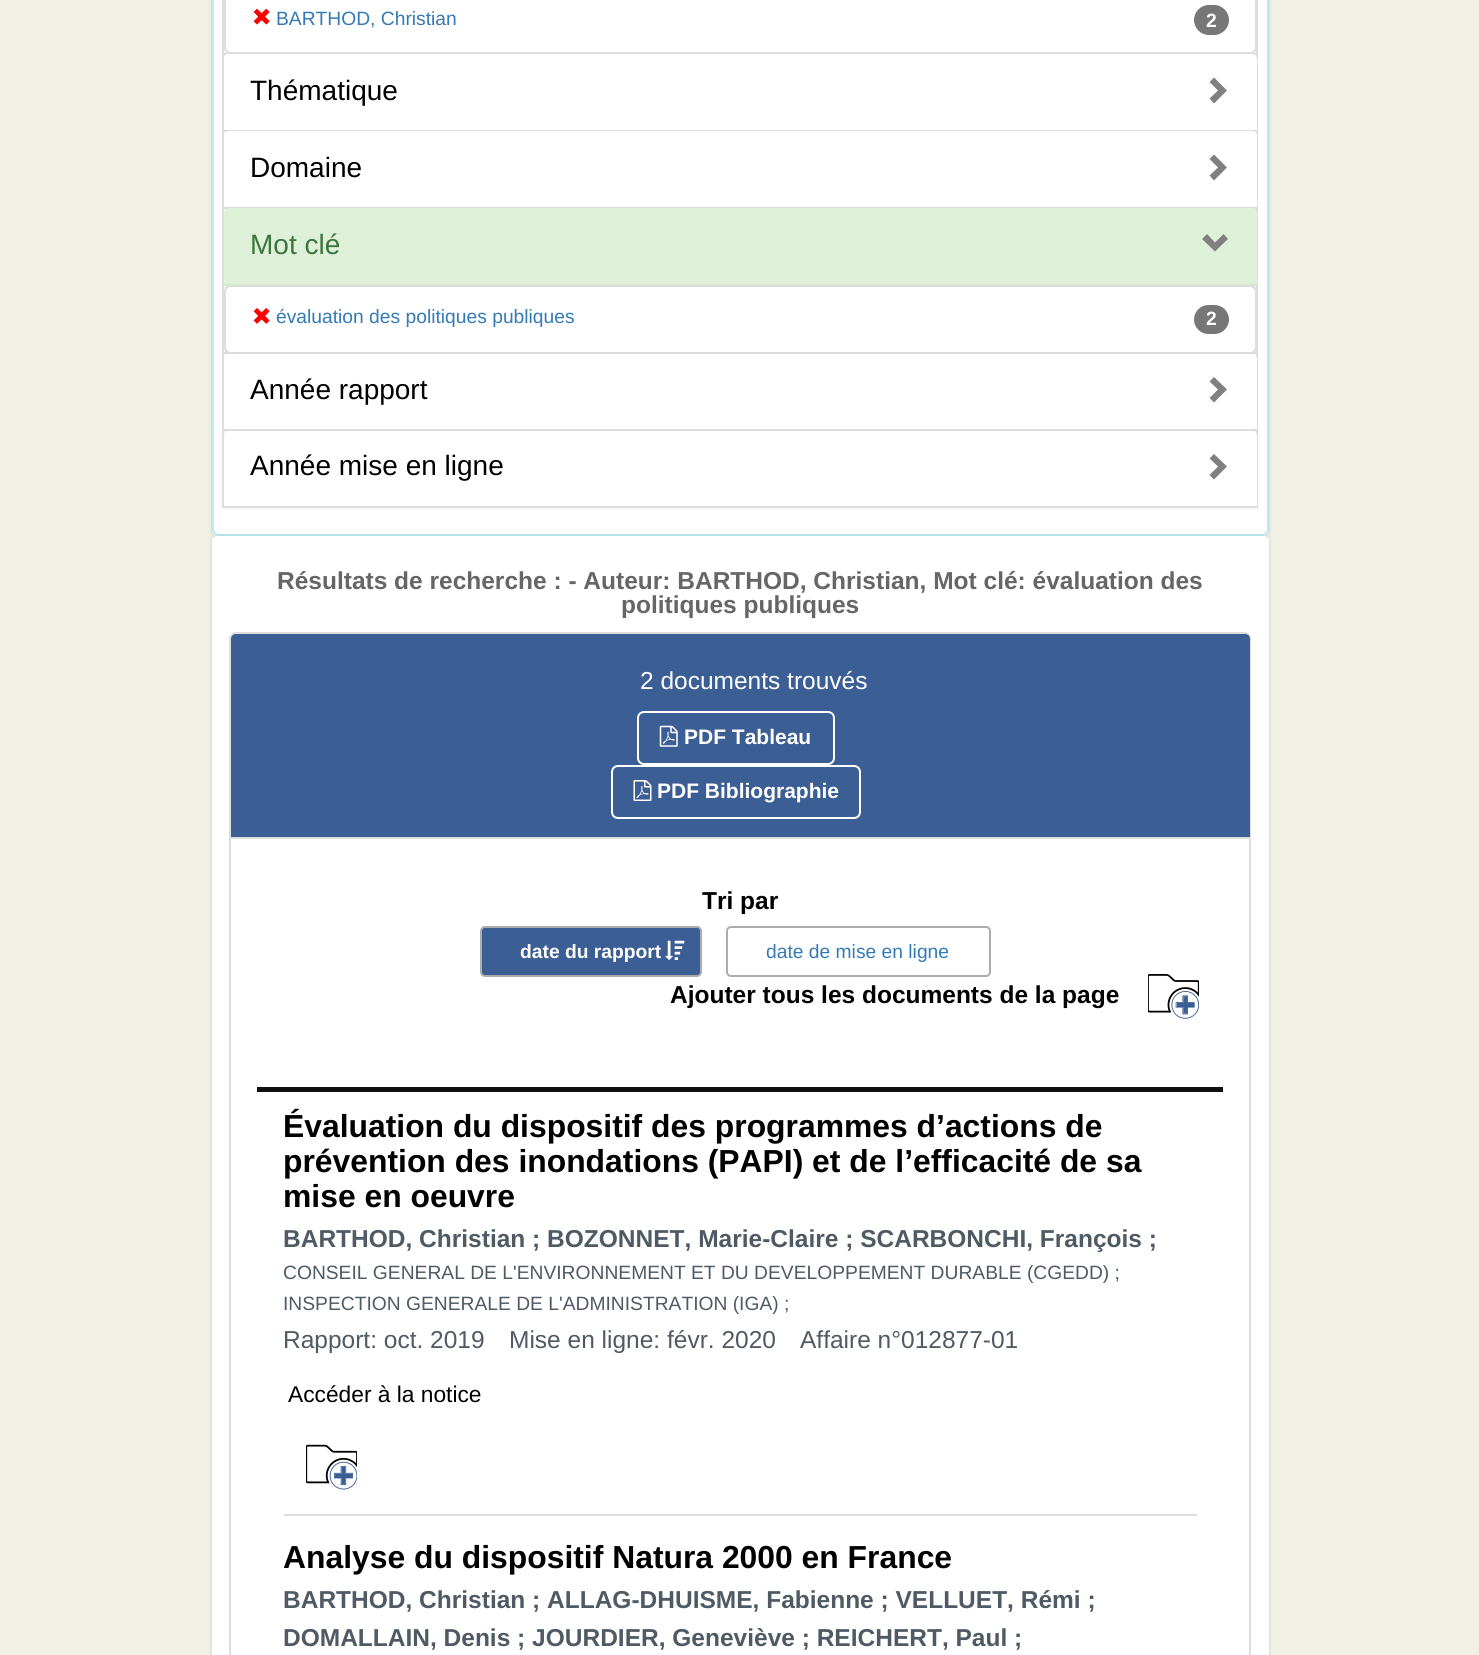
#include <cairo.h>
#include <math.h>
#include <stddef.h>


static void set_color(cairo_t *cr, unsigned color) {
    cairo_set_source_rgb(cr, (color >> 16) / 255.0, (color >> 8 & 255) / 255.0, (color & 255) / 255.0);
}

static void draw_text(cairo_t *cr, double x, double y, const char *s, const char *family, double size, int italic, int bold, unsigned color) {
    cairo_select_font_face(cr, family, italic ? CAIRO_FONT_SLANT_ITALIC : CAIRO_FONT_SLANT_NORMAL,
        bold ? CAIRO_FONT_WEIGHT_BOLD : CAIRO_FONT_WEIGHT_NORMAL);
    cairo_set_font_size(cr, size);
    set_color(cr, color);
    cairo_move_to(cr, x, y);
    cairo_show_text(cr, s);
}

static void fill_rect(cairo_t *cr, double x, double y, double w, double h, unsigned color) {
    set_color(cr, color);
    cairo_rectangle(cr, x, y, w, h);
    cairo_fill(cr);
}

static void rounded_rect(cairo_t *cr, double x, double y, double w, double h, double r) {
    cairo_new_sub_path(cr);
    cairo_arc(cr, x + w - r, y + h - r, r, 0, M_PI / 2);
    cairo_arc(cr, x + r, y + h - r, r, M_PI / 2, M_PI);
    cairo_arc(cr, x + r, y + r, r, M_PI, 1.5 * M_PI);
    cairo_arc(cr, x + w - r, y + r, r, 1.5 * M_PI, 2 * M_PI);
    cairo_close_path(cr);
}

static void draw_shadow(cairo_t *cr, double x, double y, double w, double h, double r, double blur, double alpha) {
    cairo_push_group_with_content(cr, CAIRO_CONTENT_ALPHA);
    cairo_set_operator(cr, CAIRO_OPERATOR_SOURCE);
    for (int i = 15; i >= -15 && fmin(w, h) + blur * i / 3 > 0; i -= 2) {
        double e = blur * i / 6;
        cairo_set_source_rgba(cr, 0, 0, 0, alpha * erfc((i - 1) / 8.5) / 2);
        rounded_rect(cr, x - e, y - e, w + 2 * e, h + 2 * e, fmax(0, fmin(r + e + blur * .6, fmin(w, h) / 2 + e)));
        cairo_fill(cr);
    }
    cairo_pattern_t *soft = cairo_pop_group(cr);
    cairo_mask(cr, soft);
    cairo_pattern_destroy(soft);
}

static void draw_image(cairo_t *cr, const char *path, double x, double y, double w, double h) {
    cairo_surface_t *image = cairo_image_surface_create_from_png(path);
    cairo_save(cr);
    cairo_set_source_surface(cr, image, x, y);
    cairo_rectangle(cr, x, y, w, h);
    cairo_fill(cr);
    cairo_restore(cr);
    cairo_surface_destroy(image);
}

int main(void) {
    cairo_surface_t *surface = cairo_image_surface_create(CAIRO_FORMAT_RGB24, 1479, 1655);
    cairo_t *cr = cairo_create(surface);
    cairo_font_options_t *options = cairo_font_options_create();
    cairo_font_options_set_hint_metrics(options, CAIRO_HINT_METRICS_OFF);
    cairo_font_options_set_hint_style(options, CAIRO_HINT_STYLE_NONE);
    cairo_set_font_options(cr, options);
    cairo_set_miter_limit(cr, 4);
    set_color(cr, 0xF0F0E4);
    cairo_paint(cr);
    set_color(cr, 0x000000);
    draw_shadow(cr, 212, -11, 1057, 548, 5, 2, 0.15);
    set_color(cr, 0xFFFFFF);
    rounded_rect(cr, 212, -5, 1057, 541, 5);
    cairo_fill(cr);
    set_color(cr, 0x000000);
    draw_shadow(cr, 212, -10, 1057, 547, 7, 1, 0.05);
    set_color(cr, 0xFFFFFF);
    rounded_rect(cr, 213, -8, 1055, 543, 6);
    cairo_fill_preserve(cr);
    set_color(cr, 0xBCE8F1);
    cairo_stroke(cr);
    fill_rect(cr, 224, 47, 1032, 6, 0xF5F5F5);
    cairo_rectangle(cr, 223, -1, 1034, 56);
    set_color(cr, 0xDDDDDD);
    cairo_stroke(cr);
    fill_rect(cr, 224, 55, 1032, 4, 0xF5F5F5);
    cairo_rectangle(cr, 223, 54, 1034, 78);
    set_color(cr, 0xDDDDDD);
    cairo_stroke(cr);
    set_color(cr, 0xFFFFFF);
    rounded_rect(cr, 225, -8, 1031, 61, 6);
    cairo_fill_preserve(cr);
    set_color(cr, 0xDDDDDD);
    cairo_stroke(cr);
    draw_image(cr, "assets/img1.png", 253, 8, 17, 17);
    draw_text(cr, 276, 25, "BARTHOD, Christian", "Liberation Sans", 19.25, 0, 0, 0x337AB7);
    set_color(cr, 0x777777);
    rounded_rect(cr, 1194, 5, 35, 30, 15);
    cairo_fill(cr);
    draw_text(cr, 1206, 27, "2", "Liberation Sans", 19.25, 0, 1, 0xFFFFFF);
    cairo_new_path(cr);
    cairo_move_to(cr, 229, 54);
    cairo_line_to(cr, 1252, 54);
    cairo_curve_to(cr, 1255, 54, 1257, 56, 1257, 59);
    cairo_line_to(cr, 1257, 131);
    cairo_line_to(cr, 224, 131);
    cairo_line_to(cr, 224, 59);
    cairo_curve_to(cr, 224, 56, 226, 54, 229, 54);
    cairo_close_path(cr);
    cairo_fill(cr);
    draw_text(cr, 250, 100, "Thématique", "Liberation Sans", 28, 0, 0, 0x000000);
    set_color(cr, 0x808080);
    cairo_new_path(cr);
    cairo_move_to(cr, 1227, 90.5);
    cairo_line_to(cr, 1214, 103.5);
    cairo_line_to(cr, 1209.5, 98.5);
    cairo_line_to(cr, 1218, 90.5);
    cairo_line_to(cr, 1209.5, 82);
    cairo_line_to(cr, 1214, 77.5);
    cairo_close_path(cr);
    cairo_fill(cr);
    fill_rect(cr, 224, 132, 1032, 4, 0xF5F5F5);
    cairo_rectangle(cr, 223, 131, 1034, 78);
    set_color(cr, 0xDDDDDD);
    cairo_stroke(cr);
    set_color(cr, 0xFFFFFF);
    cairo_new_path(cr);
    cairo_move_to(cr, 229, 131);
    cairo_line_to(cr, 1252, 131);
    cairo_curve_to(cr, 1255, 131, 1257, 133, 1257, 136);
    cairo_line_to(cr, 1257, 208);
    cairo_line_to(cr, 224, 208);
    cairo_line_to(cr, 224, 136);
    cairo_curve_to(cr, 224, 133, 226, 131, 229, 131);
    cairo_close_path(cr);
    cairo_fill(cr);
    draw_text(cr, 250, 177, "Domaine", "Liberation Sans", 28, 0, 0, 0x000000);
    set_color(cr, 0x808080);
    cairo_new_path(cr);
    cairo_move_to(cr, 1227, 167.5);
    cairo_line_to(cr, 1214, 180.5);
    cairo_line_to(cr, 1209.5, 175.5);
    cairo_line_to(cr, 1218, 167.5);
    cairo_line_to(cr, 1209.5, 159);
    cairo_line_to(cr, 1214, 154.5);
    cairo_close_path(cr);
    cairo_fill(cr);
    fill_rect(cr, 224, 209, 1032, 143, 0xF5F5F5);
    cairo_rectangle(cr, 223, 208, 1034, 146);
    set_color(cr, 0xDDDDDD);
    cairo_stroke(cr);
    set_color(cr, 0xDFF0D8);
    cairo_new_path(cr);
    cairo_move_to(cr, 229, 208);
    cairo_line_to(cr, 1252, 208);
    cairo_curve_to(cr, 1255, 208, 1257, 210, 1257, 213);
    cairo_line_to(cr, 1257, 285);
    cairo_line_to(cr, 224, 285);
    cairo_line_to(cr, 224, 213);
    cairo_curve_to(cr, 224, 210, 226, 208, 229, 208);
    cairo_close_path(cr);
    cairo_fill(cr);
    fill_rect(cr, 224, 284, 1033, 2, 0xD6E9C6);
    draw_text(cr, 250, 254, "Mot clé", "Liberation Sans", 28, 0, 0, 0x3C763D);
    set_color(cr, 0x808080);
    cairo_new_path(cr);
    cairo_move_to(cr, 1228, 239);
    cairo_line_to(cr, 1215, 251.5);
    cairo_line_to(cr, 1202, 239);
    cairo_line_to(cr, 1207, 234);
    cairo_line_to(cr, 1215, 242.5);
    cairo_line_to(cr, 1223.5, 234);
    cairo_close_path(cr);
    cairo_fill(cr);
    fill_rect(cr, 224, 354, 1032, 5, 0xF5F5F5);
    cairo_rectangle(cr, 223, 353, 1034, 78);
    set_color(cr, 0xDDDDDD);
    cairo_stroke(cr);
    set_color(cr, 0xFFFFFF);
    rounded_rect(cr, 225, 286, 1031, 67, 6);
    cairo_fill_preserve(cr);
    set_color(cr, 0xDDDDDD);
    cairo_stroke(cr);
    draw_image(cr, "assets/img2.png", 253, 308, 17, 16);
    draw_text(cr, 276, 323, "évaluation des politiques publiques", "Liberation Sans", 19.25, 0, 0, 0x337AB7);
    set_color(cr, 0x777777);
    rounded_rect(cr, 1194, 305, 35, 29, 14.5);
    cairo_fill(cr);
    draw_text(cr, 1206, 325, "2", "Liberation Sans", 19.25, 0, 1, 0xFFFFFF);
    cairo_new_path(cr);
    cairo_move_to(cr, 229, 354);
    cairo_line_to(cr, 1252, 354);
    cairo_curve_to(cr, 1255, 354, 1257, 356, 1257, 359);
    cairo_line_to(cr, 1257, 431);
    cairo_line_to(cr, 224, 431);
    cairo_line_to(cr, 224, 359);
    cairo_curve_to(cr, 224, 356, 226, 354, 229, 354);
    cairo_close_path(cr);
    cairo_fill(cr);
    draw_text(cr, 250, 399, "Année rapport", "Liberation Sans", 28, 0, 0, 0x000000);
    set_color(cr, 0x808080);
    cairo_new_path(cr);
    cairo_move_to(cr, 1227, 389.5);
    cairo_line_to(cr, 1214, 402.5);
    cairo_line_to(cr, 1209.5, 398);
    cairo_line_to(cr, 1218, 389.5);
    cairo_line_to(cr, 1209.5, 381.5);
    cairo_line_to(cr, 1214, 377);
    cairo_close_path(cr);
    cairo_fill(cr);
    set_color(cr, 0x000000);
    draw_shadow(cr, 222, 431, 1036, 78, 0, 1, 0.05);
    fill_rect(cr, 224, 431, 1032, 5, 0xF5F5F5);
    cairo_rectangle(cr, 223, 430, 1034, 77);
    set_color(cr, 0xDDDDDD);
    cairo_stroke(cr);
    set_color(cr, 0xFFFFFF);
    cairo_new_path(cr);
    cairo_move_to(cr, 229, 431);
    cairo_line_to(cr, 1252, 431);
    cairo_curve_to(cr, 1255, 431, 1257, 433, 1257, 436);
    cairo_line_to(cr, 1257, 506);
    cairo_line_to(cr, 224, 506);
    cairo_line_to(cr, 224, 436);
    cairo_curve_to(cr, 224, 433, 226, 431, 229, 431);
    cairo_close_path(cr);
    cairo_fill(cr);
    draw_text(cr, 250, 475, "Année mise en ligne", "Liberation Sans", 28, 0, 0, 0x000000);
    set_color(cr, 0x808080);
    cairo_new_path(cr);
    cairo_move_to(cr, 1227, 466.5);
    cairo_line_to(cr, 1214, 479.5);
    cairo_line_to(cr, 1209.5, 475);
    cairo_line_to(cr, 1218, 466.5);
    cairo_line_to(cr, 1209.5, 458.5);
    cairo_line_to(cr, 1214, 454);
    cairo_close_path(cr);
    cairo_fill(cr);
    set_color(cr, 0x000000);
    draw_shadow(cr, 212, 537, 1057, 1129, 5, 2, 0.15);
    set_color(cr, 0xFFFFFF);
    rounded_rect(cr, 212, 536, 1057, 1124, 5);
    cairo_fill(cr);
    draw_text(cr, 277, 589, "Résultats de recherche : - Auteur: BARTHOD, Christian, Mot clé: évaluation des", "Liberation Sans", 24.5, 0, 1, 0x666666);
    draw_text(cr, 621, 613, "politiques publiques", "Liberation Sans", 24.5, 0, 1, 0x666666);
    rounded_rect(cr, 230, 633, 1020, 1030, 6);
    set_color(cr, 0xDDDDDD);
    cairo_stroke(cr);
    set_color(cr, 0x3B5E94);
    cairo_new_path(cr);
    cairo_move_to(cr, 236, 634);
    cairo_line_to(cr, 1245, 634);
    cairo_curve_to(cr, 1248, 634, 1250, 636, 1250, 639);
    cairo_line_to(cr, 1250, 838);
    cairo_line_to(cr, 231, 838);
    cairo_line_to(cr, 231, 639);
    cairo_curve_to(cr, 231, 636, 233, 634, 236, 634);
    cairo_close_path(cr);
    cairo_fill(cr);
    fill_rect(cr, 231, 837, 1019, 2, 0xDDDDDD);
    draw_text(cr, 640, 689, "2 documents trouvés", "Liberation Sans", 24.5, 0, 0, 0xFFFFFF);
    rounded_rect(cr, 638, 712, 196, 52, 6);
    cairo_stroke(cr);
    draw_image(cr, "assets/img3.png", 659, 725, 19, 22);
    draw_text(cr, 684, 744, "PDF Tableau", "Liberation Sans", 21, 0, 1, 0xFFFFFF);
    rounded_rect(cr, 612, 766, 248, 52, 6);
    cairo_stroke(cr);
    draw_image(cr, "assets/img4.png", 633, 780, 19, 21);
    draw_text(cr, 657, 798, "PDF Bibliographie", "Liberation Sans", 21, 0, 1, 0xFFFFFF);
    draw_text(cr, 702, 909, "Tri par", "Liberation Sans", 24.5, 0, 1, 0x000000);
    set_color(cr, 0x3B5E94);
    rounded_rect(cr, 481, 927, 220, 49, 4);
    cairo_fill_preserve(cr);
    set_color(cr, 0xADADAD);
    cairo_stroke(cr);
    draw_text(cr, 520, 958, "date du rapport", "Liberation Sans", 19.25, 0, 1, 0xFFFFFF);
    draw_image(cr, "assets/img5.png", 665, 940, 20, 20);
    rounded_rect(cr, 727, 927, 263, 49, 4);
    set_color(cr, 0xADADAD);
    cairo_stroke(cr);
    draw_text(cr, 766, 958, "date de mise en ligne", "Liberation Sans", 19.25, 0, 0, 0x337AB7);
    draw_text(cr, 670, 1003, "Ajouter tous les documents de la page", "Liberation Sans", 24.5, 0, 1, 0x000000);
    draw_image(cr, "assets/img6.png", 1148, 974, 51, 45);
    fill_rect(cr, 257, 1087, 966, 5, 0x101010);
    draw_text(cr, 283, 1137, "Évaluation du dispositif des programmes d’actions de", "Liberation Sans", 31.85, 0, 1, 0x000000);
    draw_text(cr, 283, 1172, "prévention des inondations (PAPI) et de l’efficacité de sa", "Liberation Sans", 31.85, 0, 1, 0x000000);
    draw_text(cr, 283, 1207, "mise en oeuvre", "Liberation Sans", 31.85, 0, 1, 0x000000);
    draw_text(cr, 283, 1247, "BARTHOD, Christian ; BOZONNET, Marie-Claire ; SCARBONCHI, François ;", "Liberation Sans", 24.5, 0, 1, 0x4F5A65);
    draw_text(cr, 283, 1279, "CONSEIL GENERAL DE L'ENVIRONNEMENT ET DU DEVELOPPEMENT DURABLE (CGEDD) ;", "Liberation Sans", 19.25, 0, 0, 0x4F5A65);
    draw_text(cr, 283, 1310, "INSPECTION GENERALE DE L'ADMINISTRATION (IGA) ;", "Liberation Sans", 19.25, 0, 0, 0x4F5A65);
    draw_text(cr, 283, 1348, "Rapport: oct. 2019", "Liberation Sans", 24.5, 0, 0, 0x4F5A65);
    draw_text(cr, 509, 1348, "Mise en ligne: févr. 2020", "Liberation Sans", 24.5, 0, 0, 0x4F5A65);
    draw_text(cr, 800, 1348, "Affaire n°012877-01", "Liberation Sans", 24.5, 0, 0, 0x4F5A65);
    draw_text(cr, 288, 1402, "Accéder à la notice", "Liberation Sans", 22.75, 0, 0, 0x000000);
    draw_image(cr, "assets/img7.png", 306, 1444, 51, 46);
    fill_rect(cr, 284, 1514, 913, 2, 0xDDDDDD);
    draw_text(cr, 283, 1568, "Analyse du dispositif Natura 2000 en France", "Liberation Sans", 31.85, 0, 1, 0x000000);
    draw_text(cr, 283, 1608, "BARTHOD, Christian ; ALLAG-DHUISME, Fabienne ; VELLUET, Rémi ;", "Liberation Sans", 24.5, 0, 1, 0x4F5A65);
    draw_text(cr, 283, 1646, "DOMALLAIN, Denis ; JOURDIER, Geneviève ; REICHERT, Paul ;", "Liberation Sans", 24.5, 0, 1, 0x4F5A65);
    cairo_surface_write_to_png(surface, "output.png");
    cairo_font_options_destroy(options);
    cairo_destroy(cr);
    cairo_surface_destroy(surface);
    return 0;
}
